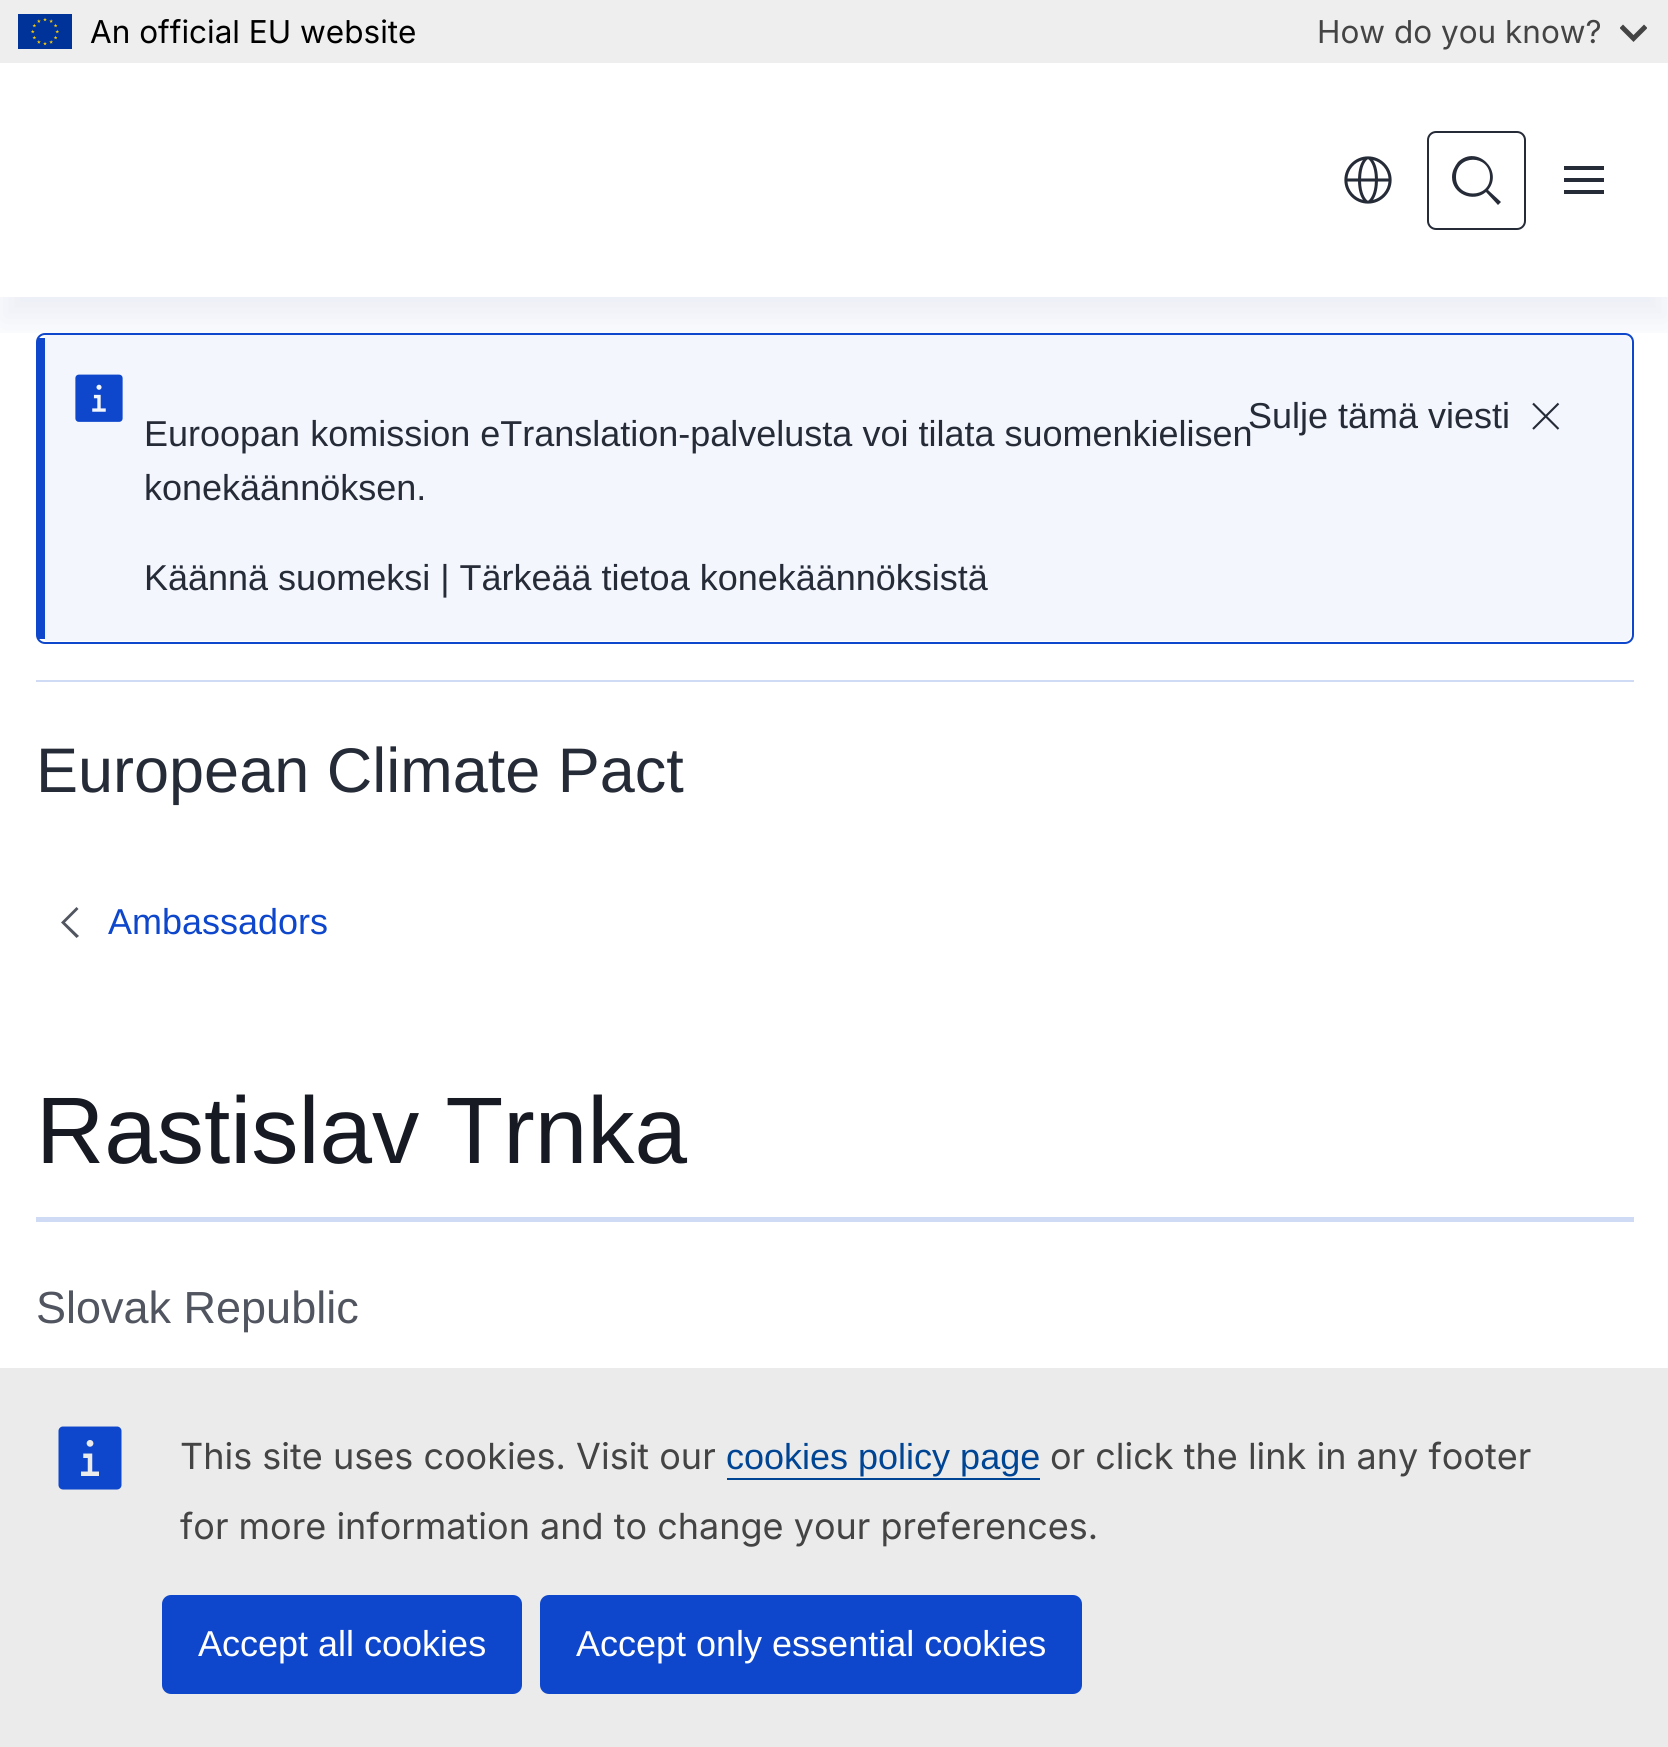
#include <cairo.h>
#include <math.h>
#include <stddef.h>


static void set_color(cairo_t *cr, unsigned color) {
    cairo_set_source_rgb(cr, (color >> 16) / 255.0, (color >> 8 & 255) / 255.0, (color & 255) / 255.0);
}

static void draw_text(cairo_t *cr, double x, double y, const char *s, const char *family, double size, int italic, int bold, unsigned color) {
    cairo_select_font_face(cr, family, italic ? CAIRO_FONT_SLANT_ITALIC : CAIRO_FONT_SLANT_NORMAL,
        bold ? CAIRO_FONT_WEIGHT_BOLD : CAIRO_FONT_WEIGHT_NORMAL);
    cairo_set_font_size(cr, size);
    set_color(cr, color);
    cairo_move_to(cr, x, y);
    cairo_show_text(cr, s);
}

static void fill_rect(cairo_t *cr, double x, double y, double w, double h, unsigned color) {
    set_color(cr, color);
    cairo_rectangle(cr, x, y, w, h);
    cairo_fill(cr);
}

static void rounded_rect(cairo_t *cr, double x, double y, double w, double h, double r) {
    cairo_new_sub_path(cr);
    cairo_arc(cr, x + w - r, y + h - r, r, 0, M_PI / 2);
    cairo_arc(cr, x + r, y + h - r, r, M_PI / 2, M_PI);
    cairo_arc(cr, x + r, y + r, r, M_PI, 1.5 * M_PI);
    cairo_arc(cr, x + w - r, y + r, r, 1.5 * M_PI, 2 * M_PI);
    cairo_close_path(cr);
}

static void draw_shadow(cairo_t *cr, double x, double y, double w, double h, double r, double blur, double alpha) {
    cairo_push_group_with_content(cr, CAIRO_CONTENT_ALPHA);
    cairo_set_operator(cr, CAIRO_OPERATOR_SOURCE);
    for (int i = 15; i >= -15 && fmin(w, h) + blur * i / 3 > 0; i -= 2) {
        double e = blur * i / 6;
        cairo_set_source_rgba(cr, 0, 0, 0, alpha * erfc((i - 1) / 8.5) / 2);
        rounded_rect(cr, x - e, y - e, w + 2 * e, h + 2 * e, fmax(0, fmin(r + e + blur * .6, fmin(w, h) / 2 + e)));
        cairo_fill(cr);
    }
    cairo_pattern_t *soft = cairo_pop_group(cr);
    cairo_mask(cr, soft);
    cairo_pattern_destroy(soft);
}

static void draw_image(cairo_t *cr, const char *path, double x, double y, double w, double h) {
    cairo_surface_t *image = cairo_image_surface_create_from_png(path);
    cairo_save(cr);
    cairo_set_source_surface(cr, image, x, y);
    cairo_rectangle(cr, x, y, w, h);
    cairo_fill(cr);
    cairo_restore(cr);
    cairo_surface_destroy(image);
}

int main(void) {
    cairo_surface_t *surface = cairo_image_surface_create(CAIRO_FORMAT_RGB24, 1668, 1747);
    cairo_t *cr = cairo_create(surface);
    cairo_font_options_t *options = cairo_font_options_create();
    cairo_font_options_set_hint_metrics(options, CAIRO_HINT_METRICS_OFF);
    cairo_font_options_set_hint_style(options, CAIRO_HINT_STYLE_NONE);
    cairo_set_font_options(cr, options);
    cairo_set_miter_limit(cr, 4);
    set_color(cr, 0xFFFFFF);
    cairo_paint(cr);
    fill_rect(cr, 0, 0, 1668, 63, 0xEEEEEE);
    draw_image(cr, "assets/img1.png", 18, 14, 54, 35);
    draw_text(cr, 90, 43, "An official EU website", "Inter", 31.5, 0, 0, 0x000000);
    draw_text(cr, 1317, 43, "How do you know?", "Inter", 31.5, 0, 0, 0x444444);
    cairo_save(cr);
    cairo_rectangle(cr, 1620, 18, 27, 27);
    cairo_clip(cr);
    cairo_new_path(cr);
    cairo_move_to(cr, 1621.5, 28);
    cairo_line_to(cr, 1623, 26.5);
    cairo_line_to(cr, 1633.5, 37);
    cairo_line_to(cr, 1644, 26.5);
    cairo_line_to(cr, 1645.5, 28);
    cairo_line_to(cr, 1633.5, 40);
    cairo_close_path(cr);
    cairo_set_line_width(cr, 2.8);
    cairo_stroke(cr);
    cairo_restore(cr);
    set_color(cr, 0xF3F6FC);
    cairo_new_path(cr);
    cairo_move_to(cr, 45, 335);
    cairo_line_to(cr, 1624, 335);
    cairo_curve_to(cr, 1628, 335, 1631, 338, 1631, 342);
    cairo_line_to(cr, 1631, 634);
    cairo_curve_to(cr, 1631, 638, 1628, 641, 1624, 641);
    cairo_line_to(cr, 45, 641);
    cairo_close_path(cr);
    cairo_fill(cr);
    rounded_rect(cr, 37, 334, 1596, 309, 8);
    set_color(cr, 0x0E47CB);
    cairo_stroke(cr);
    fill_rect(cr, 38, 338, 7, 301, 0x0E47CB);
    cairo_save(cr);
    cairo_rectangle(cr, 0, 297, 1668, 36);
    cairo_clip(cr);
    set_color(cr, 0x09318E);
    draw_shadow(cr, 0, 88, 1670, 234, 0, 17, 0.08);
    cairo_restore(cr);
    draw_image(cr, "assets/img2.png", 1344, 156, 48, 48);
    rounded_rect(cr, 1428, 132, 97, 97, 8);
    set_color(cr, 0x262B38);
    cairo_stroke(cr);
    cairo_set_fill_rule(cr, CAIRO_FILL_RULE_EVEN_ODD);
    cairo_new_path(cr);
    cairo_move_to(cr, 1452, 177);
    cairo_curve_to(cr, 1452, 171, 1455, 166, 1458, 162);
    cairo_curve_to(cr, 1477, 144, 1504, 171, 1488, 190);
    cairo_line_to(cr, 1501, 202);
    cairo_line_to(cr, 1498, 205);
    cairo_line_to(cr, 1486, 192);
    cairo_curve_to(cr, 1473, 203, 1452, 194, 1452, 177);
    cairo_move_to(cr, 1490, 177);
    cairo_curve_to(cr, 1490, 154, 1456, 154, 1456, 177);
    cairo_curve_to(cr, 1456, 199, 1490, 199, 1490, 177);
    cairo_fill(cr);
    cairo_new_path(cr);
    cairo_move_to(cr, 1604, 166);
    cairo_line_to(cr, 1564, 166);
    cairo_line_to(cr, 1564, 170);
    cairo_line_to(cr, 1604, 170);
    cairo_close_path(cr);
    cairo_move_to(cr, 1604, 190);
    cairo_line_to(cr, 1564, 190);
    cairo_line_to(cr, 1564, 194);
    cairo_line_to(cr, 1604, 194);
    cairo_close_path(cr);
    cairo_move_to(cr, 1564, 178);
    cairo_line_to(cr, 1604, 178);
    cairo_line_to(cr, 1604, 182);
    cairo_line_to(cr, 1564, 182);
    cairo_close_path(cr);
    cairo_fill(cr);
    draw_image(cr, "assets/img3.png", 75, 374, 48, 48);
    draw_text(cr, 144, 446, "Euroopan komission eTranslation-palvelusta voi tilata suomenkielisen", "Liberation Sans", 36, 0, 0, 0x262B38);
    draw_text(cr, 144, 500, "konekäännöksen.", "Liberation Sans", 36, 0, 0, 0x262B38);
    draw_text(cr, 144, 590, "Käännä suomeksi | Tärkeää tietoa konekäännöksistä", "Liberation Sans", 36, 0, 0, 0x262B38);
    draw_text(cr, 1248, 428, "Sulje tämä viesti", "Liberation Sans", 36, 0, 0, 0x262B38);
    draw_image(cr, "assets/img4.png", 1532, 402, 28, 28);
    fill_rect(cr, 36, 680, 1598, 2, 0xCFDAF5);
    draw_text(cr, 36, 792, "European Climate Pact", "Liberation Sans", 63, 0, 0, 0x262B38);
    set_color(cr, 0x515560);
    cairo_set_fill_rule(cr, CAIRO_FILL_RULE_WINDING);
    cairo_new_path(cr);
    cairo_move_to(cr, 76.5, 907);
    cairo_line_to(cr, 78.5, 909);
    cairo_line_to(cr, 65, 922.5);
    cairo_line_to(cr, 79, 936);
    cairo_line_to(cr, 76.5, 938);
    cairo_line_to(cr, 61, 922.5);
    cairo_close_path(cr);
    cairo_fill(cr);
    draw_text(cr, 108, 934, "Ambassadors", "Liberation Sans", 36, 0, 0, 0x0E47CB);
    fill_rect(cr, 36, 1217, 1598, 5, 0xCFDAF5);
    draw_text(cr, 36, 1163, "Rastislav Trnka", "Liberation Sans", 94.5, 0, 0, 0x171A22);
    draw_text(cr, 36, 1323, "Slovak Republic", "Liberation Sans", 45, 0, 0, 0x515560);
    fill_rect(cr, 0, 1368, 1668, 379, 0xEBEBEB);
    draw_image(cr, "assets/img5.png", 58, 1426, 64, 64);
    draw_text(cr, 180, 1469, "This site uses cookies. Visit our", "Inter", 36, 0, 0, 0x444444);
    draw_text(cr, 726, 1469, "cookies policy page", "Liberation Sans", 36, 0, 0, 0x004494);
    fill_rect(cr, 727, 1478, 313, 2, 0x004494);
    draw_text(cr, 1050, 1469, "or click the link in any footer", "Inter", 36, 0, 0, 0x444444);
    draw_text(cr, 180, 1539, "for more information and to change your preferences.", "Inter", 36, 0, 0, 0x444444);
    set_color(cr, 0x0E47CB);
    rounded_rect(cr, 162, 1595, 360, 99, 9);
    cairo_fill(cr);
    draw_text(cr, 198, 1656, "Accept all cookies", "Liberation Sans", 36, 0, 0, 0xFFFFFF);
    set_color(cr, 0x0E47CB);
    rounded_rect(cr, 540, 1595, 542, 99, 9);
    cairo_fill(cr);
    draw_text(cr, 576, 1656, "Accept only essential cookies", "Liberation Sans", 36, 0, 0, 0xFFFFFF);
    cairo_surface_write_to_png(surface, "output.png");
    cairo_font_options_destroy(options);
    cairo_destroy(cr);
    cairo_surface_destroy(surface);
    return 0;
}
